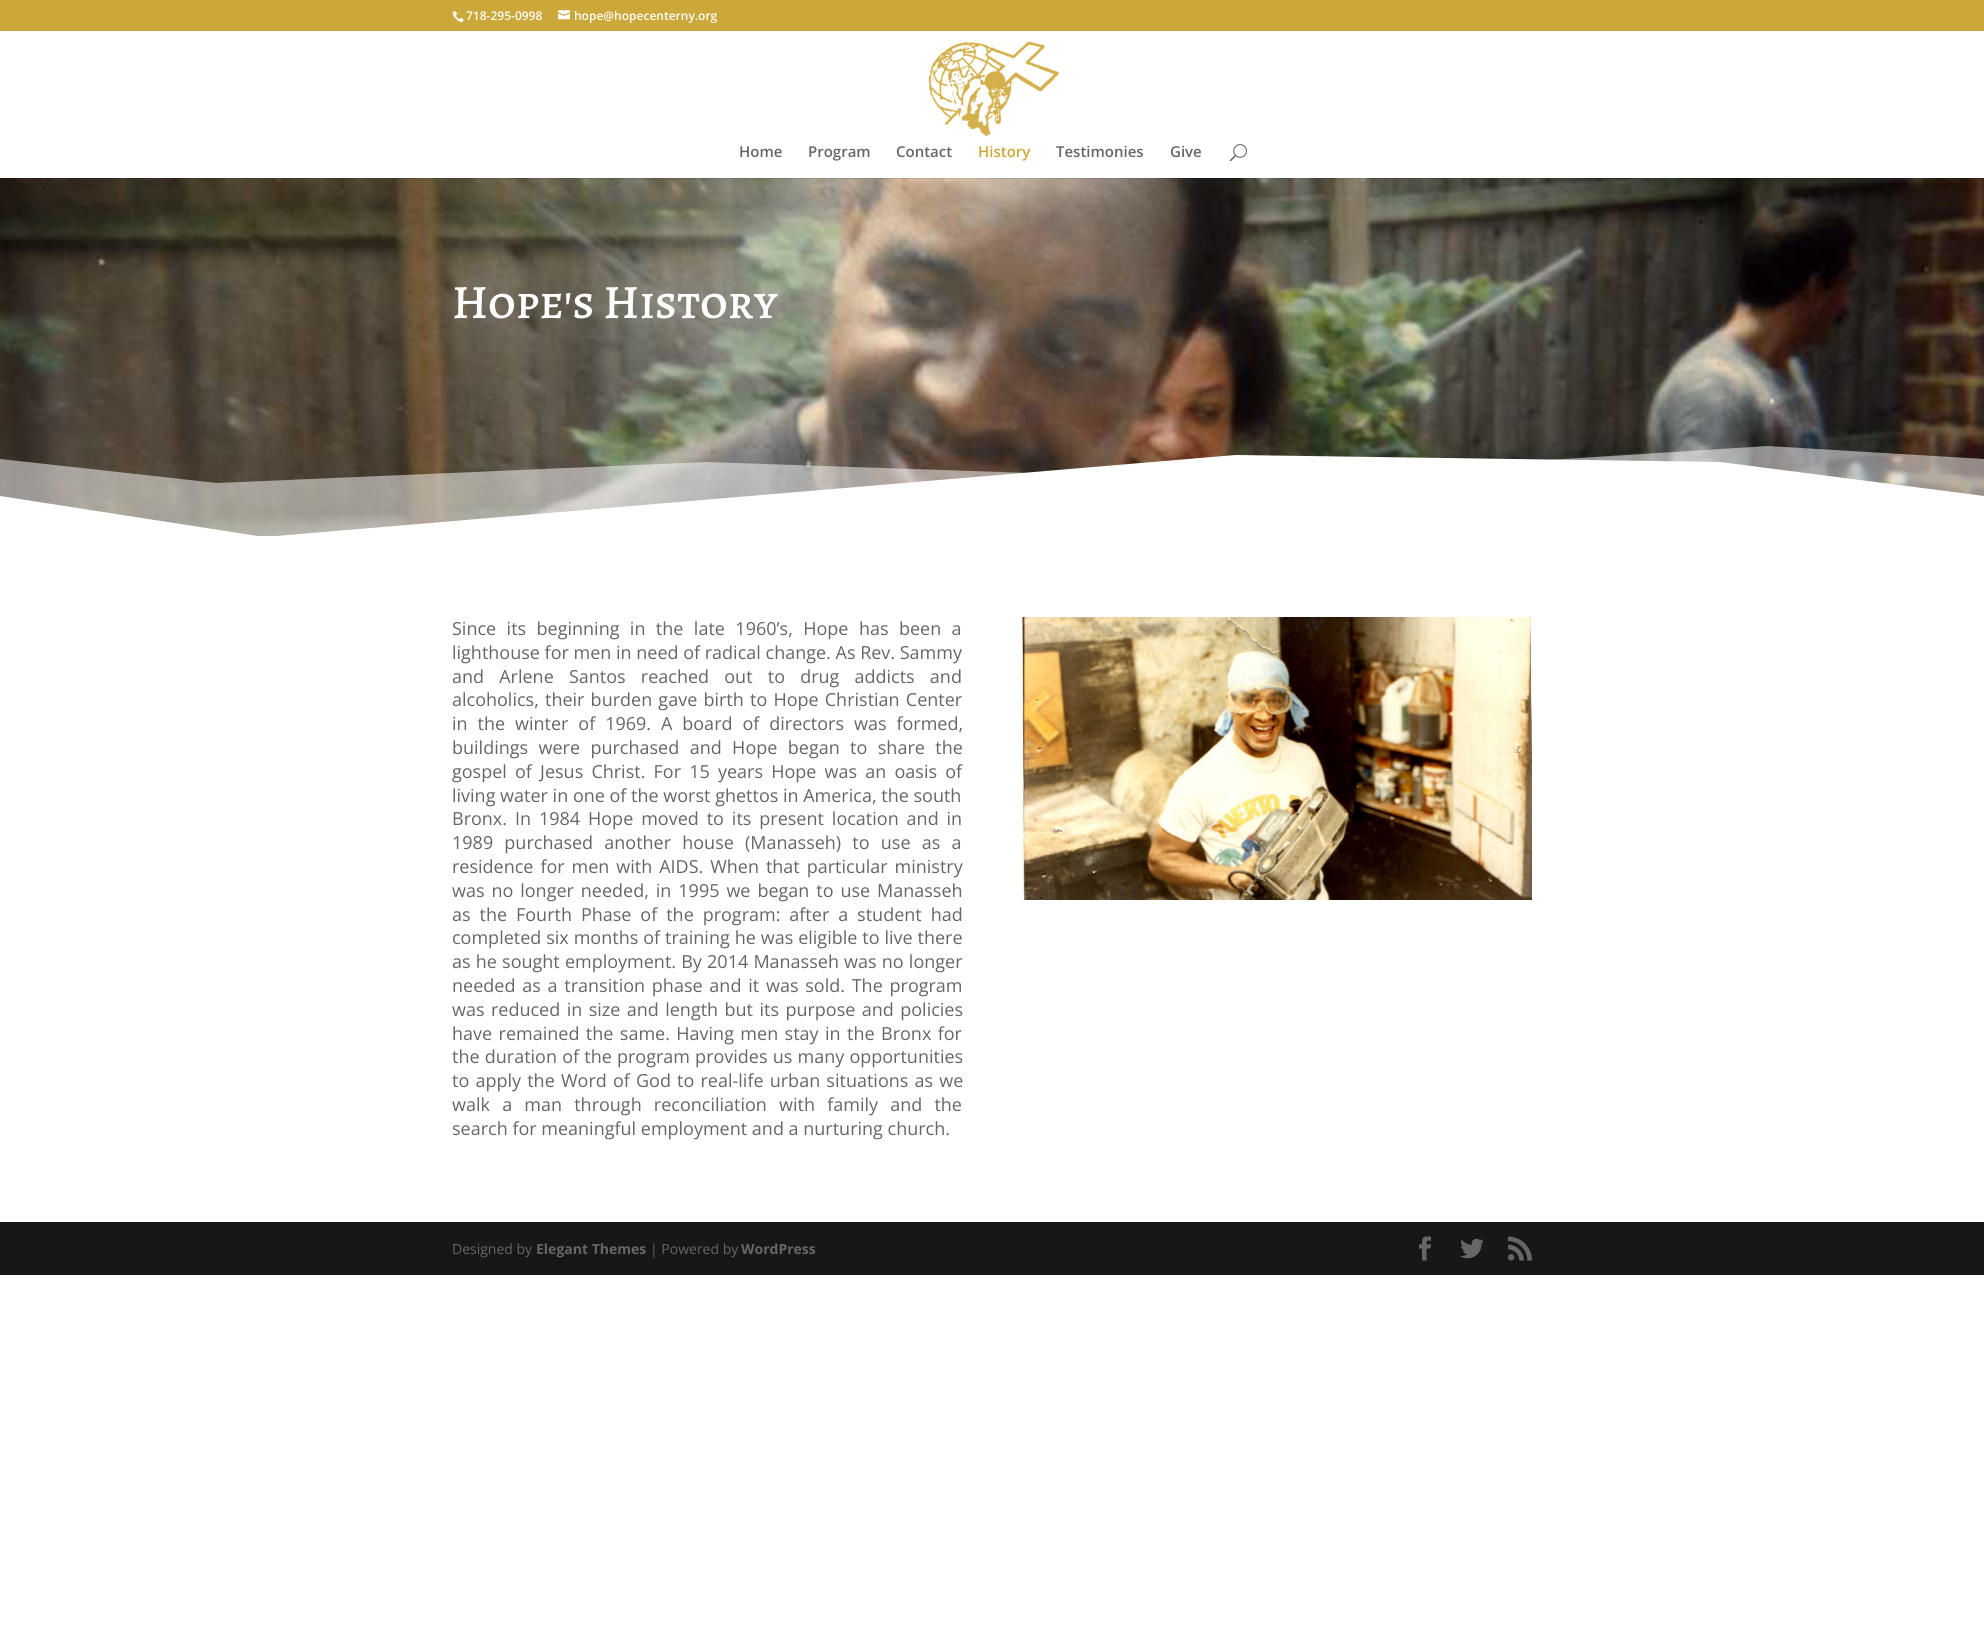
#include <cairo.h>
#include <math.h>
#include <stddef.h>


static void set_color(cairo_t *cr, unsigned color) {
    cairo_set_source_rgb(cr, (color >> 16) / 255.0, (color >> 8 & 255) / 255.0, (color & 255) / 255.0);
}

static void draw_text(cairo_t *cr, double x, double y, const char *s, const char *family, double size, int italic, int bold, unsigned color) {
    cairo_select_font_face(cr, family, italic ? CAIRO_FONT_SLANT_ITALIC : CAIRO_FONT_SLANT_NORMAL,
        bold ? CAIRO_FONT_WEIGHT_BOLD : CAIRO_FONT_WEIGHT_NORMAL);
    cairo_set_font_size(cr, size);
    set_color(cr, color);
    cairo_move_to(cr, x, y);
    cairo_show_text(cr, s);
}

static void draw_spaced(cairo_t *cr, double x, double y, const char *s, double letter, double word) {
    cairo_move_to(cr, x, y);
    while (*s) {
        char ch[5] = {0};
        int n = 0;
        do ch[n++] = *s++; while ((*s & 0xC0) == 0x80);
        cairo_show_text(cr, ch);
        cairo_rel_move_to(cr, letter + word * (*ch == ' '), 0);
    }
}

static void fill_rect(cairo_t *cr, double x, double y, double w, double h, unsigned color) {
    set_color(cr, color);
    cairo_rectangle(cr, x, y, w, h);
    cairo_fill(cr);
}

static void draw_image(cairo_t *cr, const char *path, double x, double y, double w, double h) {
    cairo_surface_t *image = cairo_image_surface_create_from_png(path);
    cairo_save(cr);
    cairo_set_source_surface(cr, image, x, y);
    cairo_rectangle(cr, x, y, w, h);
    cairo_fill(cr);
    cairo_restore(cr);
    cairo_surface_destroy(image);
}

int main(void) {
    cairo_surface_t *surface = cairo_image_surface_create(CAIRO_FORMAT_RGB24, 1984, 1626);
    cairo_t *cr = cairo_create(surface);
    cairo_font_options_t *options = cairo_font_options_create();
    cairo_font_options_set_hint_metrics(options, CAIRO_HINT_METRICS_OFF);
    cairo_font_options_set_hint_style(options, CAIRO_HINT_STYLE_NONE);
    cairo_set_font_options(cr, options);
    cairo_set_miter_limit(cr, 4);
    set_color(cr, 0xFFFFFF);
    cairo_paint(cr);
    fill_rect(cr, 0, 0, 1984, 31, 0xCCA73A);
    draw_image(cr, "assets/img1.png", 452, 11, 12, 12);
    draw_text(cr, 466, 20, "718-295-0998", "Open Sans SemiBold", 12, 0, 0, 0xFFFFFF);
    draw_image(cr, "assets/img2.png", 558, 10, 12, 10);
    draw_text(cr, 574, 20, "hope@hopecenterny.org", "Open Sans SemiBold", 12, 0, 0, 0xFFFFFF);
    draw_image(cr, "assets/img5.png", 0, 178, 1984, 358);
    cairo_set_source_rgba(cr, 0, 0, 0, 0.1);
    cairo_rectangle(cr, 0, 178, 1984, 1);
    cairo_fill(cr);
    draw_image(cr, "assets/img3.png", 928, 41, 131, 96);
    draw_text(cr, 739, 157, "Home", "Open Sans SemiBold", 15, 0, 0, 0x666666);
    draw_text(cr, 808, 157, "Program", "Open Sans SemiBold", 15, 0, 0, 0x666666);
    draw_text(cr, 896, 157, "Contact", "Open Sans SemiBold", 15, 0, 0, 0x666666);
    draw_text(cr, 978, 157, "History", "Open Sans SemiBold", 15, 0, 0, 0xCCA73A);
    draw_text(cr, 1056, 157, "Testimonies", "Open Sans SemiBold", 15, 0, 0, 0x666666);
    draw_text(cr, 1170, 157, "Give", "Open Sans SemiBold", 15, 0, 0, 0x666666);
    draw_image(cr, "assets/img4.png", 1230, 144, 17, 18);
    draw_text(cr, 452, 318, "Hope's History", "Alegreya SC Medium", 48, 0, 0, 0xFFFFFF);
    cairo_set_source_rgba(cr, 1, 1, 1, 0.5);
    cairo_new_path(cr);
    cairo_move_to(cr, 0, 459);
    cairo_line_to(cr, 217, 483);
    cairo_line_to(cr, 706, 462);
    cairo_line_to(cr, 1235, 480);
    cairo_line_to(cr, 1767, 446);
    cairo_line_to(cr, 1984, 459);
    cairo_line_to(cr, 1984, 537);
    cairo_line_to(cr, 0, 537);
    cairo_close_path(cr);
    cairo_fill(cr);
    set_color(cr, 0xFFFFFF);
    cairo_new_path(cr);
    cairo_move_to(cr, 0, 537);
    cairo_line_to(cr, 0, 496);
    cairo_line_to(cr, 264, 537);
    cairo_line_to(cr, 1235, 455);
    cairo_line_to(cr, 1720, 462);
    cairo_line_to(cr, 1984, 496);
    cairo_line_to(cr, 1984, 537);
    cairo_close_path(cr);
    cairo_fill(cr);
    cairo_select_font_face(cr, "Open Sans", CAIRO_FONT_SLANT_NORMAL, CAIRO_FONT_WEIGHT_NORMAL);
    cairo_set_font_size(cr, 18);
    set_color(cr, 0x666666);
    draw_spaced(cr, 452, 635, "Since its beginning in the late 1960’s, Hope has been a", 0, 5.75);
    draw_text(cr, 452, 659, "lighthouse for men in need of radical change. As Rev. Sammy", "Open Sans", 18, 0, 0, 0x666666);
    draw_spaced(cr, 452, 683, "and Arlene Santos reached out to drug addicts and", 0, 10.5);
    draw_spaced(cr, 452, 706, "alcoholics, their burden gave birth to Hope Christian Center", 0, 1.5);
    draw_spaced(cr, 452, 730, "in the winter of 1969. A board of directors was formed,", 0, 5.25);
    draw_spaced(cr, 452, 754, "buildings were purchased and Hope began to share the", 0, 5.75);
    draw_spaced(cr, 452, 778, "gospel of Jesus Christ. For 15 years Hope was an oasis of", 0, 3.5);
    draw_text(cr, 452, 802, "living water in one of the worst ghettos in America, the south", "Open Sans", 18, 0, 0, 0x666666);
    draw_spaced(cr, 452, 825, "Bronx. In 1984 Hope moved to its present location and in", 0, 3.25);
    draw_spaced(cr, 452, 849, "1989 purchased another house (Manasseh) to use as a", 0, 6.5);
    draw_spaced(cr, 452, 873, "residence for men with AIDS. When that particular ministry", 0, 2.25);
    draw_spaced(cr, 452, 897, "was no longer needed, in 1995 we began to use Manasseh", 0, 2.25);
    draw_spaced(cr, 452, 921, "as the Fourth Phase of the program: after a student had", 0, 4.25);
    draw_spaced(cr, 452, 944, "completed six months of training he was eligible to live there", 0, 0.25);
    draw_spaced(cr, 452, 968, "as he sought employment. By 2014 Manasseh was no longer", 0, 0.5);
    draw_spaced(cr, 452, 992, "needed as a transition phase and it was sold. The program", 0, 2.1);
    draw_spaced(cr, 452, 1016, "was reduced in size and length but its purpose and policies", 0, 1.75);
    draw_spaced(cr, 452, 1040, "have remained the same. Having men stay in the Bronx for", 0, 1.75);
    draw_spaced(cr, 452, 1063, "the duration of the program provides us many opportunities", 0, 0.5);
    draw_spaced(cr, 452, 1087, "to apply the Word of God to real-life urban situations as we", 0, 1.5);
    draw_spaced(cr, 452, 1111, "walk a man through reconciliation with family and the", 0, 7.5);
    draw_text(cr, 452, 1135, "search for meaningful employment and a nurturing church.", "Open Sans", 18, 0, 0, 0x666666);
    draw_image(cr, "assets/img6.png", 1022, 617, 510, 283);
    fill_rect(cr, 0, 1222, 1984, 53, 0x171717);
    draw_text(cr, 452, 1254, "Designed by", "Open Sans", 14, 0, 0, 0x666666);
    draw_text(cr, 536, 1254, "Elegant Themes", "Open Sans", 14, 0, 1, 0x666666);
    draw_text(cr, 650, 1254, "| Powered by", "Open Sans", 14, 0, 0, 0x666666);
    draw_text(cr, 741, 1254, "WordPress", "Open Sans", 14, 0, 1, 0x666666);
    draw_image(cr, "assets/img7.png", 1419, 1236, 12, 25);
    draw_image(cr, "assets/img8.png", 1460, 1238, 24, 21);
    draw_image(cr, "assets/img9.png", 1508, 1236, 24, 25);
    cairo_surface_write_to_png(surface, "output.png");
    cairo_font_options_destroy(options);
    cairo_destroy(cr);
    cairo_surface_destroy(surface);
    return 0;
}
